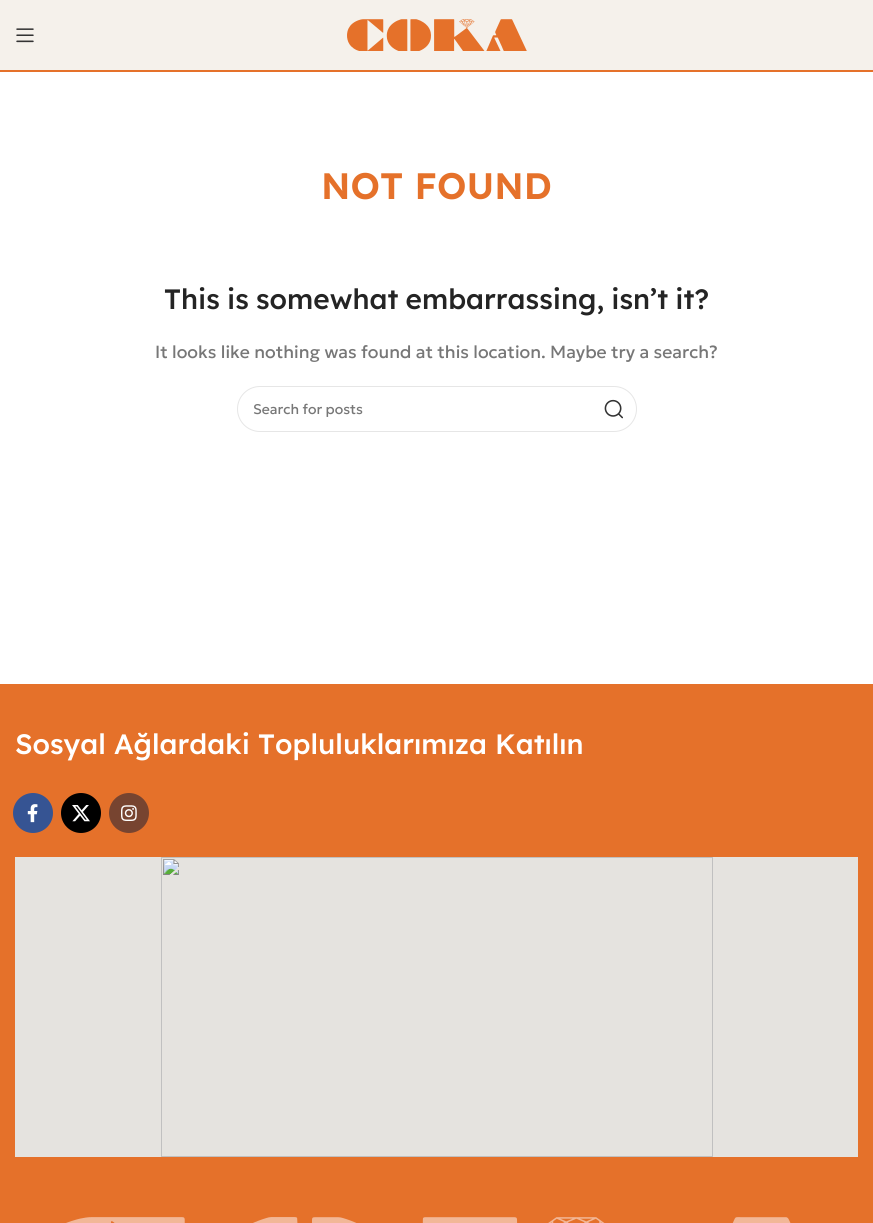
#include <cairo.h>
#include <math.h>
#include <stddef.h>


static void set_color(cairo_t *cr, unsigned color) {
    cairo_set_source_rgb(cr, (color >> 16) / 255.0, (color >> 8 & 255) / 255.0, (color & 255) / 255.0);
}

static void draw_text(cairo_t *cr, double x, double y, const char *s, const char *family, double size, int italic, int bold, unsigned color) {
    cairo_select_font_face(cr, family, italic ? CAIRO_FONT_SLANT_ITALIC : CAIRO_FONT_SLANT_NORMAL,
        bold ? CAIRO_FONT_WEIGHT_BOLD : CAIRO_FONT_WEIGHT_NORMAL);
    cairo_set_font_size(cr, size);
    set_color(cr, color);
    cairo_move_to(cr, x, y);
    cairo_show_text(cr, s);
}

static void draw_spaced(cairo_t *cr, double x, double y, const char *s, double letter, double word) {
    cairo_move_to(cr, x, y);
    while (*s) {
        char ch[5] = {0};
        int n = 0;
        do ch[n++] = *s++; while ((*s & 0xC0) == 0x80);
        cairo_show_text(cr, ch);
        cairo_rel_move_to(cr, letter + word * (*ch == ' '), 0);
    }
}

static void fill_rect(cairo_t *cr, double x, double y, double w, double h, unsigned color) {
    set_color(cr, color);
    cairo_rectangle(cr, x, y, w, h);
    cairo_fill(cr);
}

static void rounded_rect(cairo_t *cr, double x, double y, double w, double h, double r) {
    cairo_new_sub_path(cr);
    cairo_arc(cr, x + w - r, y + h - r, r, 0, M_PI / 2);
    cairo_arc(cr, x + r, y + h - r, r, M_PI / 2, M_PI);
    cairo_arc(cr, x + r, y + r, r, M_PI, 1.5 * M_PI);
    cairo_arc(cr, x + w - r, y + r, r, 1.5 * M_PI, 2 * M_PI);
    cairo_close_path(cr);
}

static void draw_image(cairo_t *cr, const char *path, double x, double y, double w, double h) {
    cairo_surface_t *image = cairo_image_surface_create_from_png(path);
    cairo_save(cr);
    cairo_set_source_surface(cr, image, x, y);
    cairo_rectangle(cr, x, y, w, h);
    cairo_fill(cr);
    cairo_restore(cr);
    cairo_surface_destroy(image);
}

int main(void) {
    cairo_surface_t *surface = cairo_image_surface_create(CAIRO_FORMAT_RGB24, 873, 1223);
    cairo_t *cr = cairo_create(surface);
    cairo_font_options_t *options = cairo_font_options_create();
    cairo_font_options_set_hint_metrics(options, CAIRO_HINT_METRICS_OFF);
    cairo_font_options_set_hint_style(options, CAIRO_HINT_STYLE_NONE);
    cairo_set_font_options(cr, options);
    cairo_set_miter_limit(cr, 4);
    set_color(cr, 0xFFFFFF);
    cairo_paint(cr);
    fill_rect(cr, 0, 0, 873, 70, 0xF5F1EB);
    fill_rect(cr, 0, 70, 873, 2, 0xE5712A);
    draw_image(cr, "assets/img1.png", 16, 28, 18, 15);
    draw_image(cr, "assets/img2.png", 347, 19, 180, 32);
    draw_text(cr, 321, 199, "NOT FOUND", "Lexend Deca SemiBold", 36.75, 0, 0, 0xE5712A);
    cairo_select_font_face(cr, "Lexend Deca Medium", CAIRO_FONT_SLANT_NORMAL, CAIRO_FONT_WEIGHT_NORMAL);
    cairo_set_font_size(cr, 28);
    set_color(cr, 0x242424);
    draw_spaced(cr, 164, 309, "This is somewhat embarrassing, isn’t it?", 0, -1);
    draw_text(cr, 155, 358, "It looks like nothing was found at this location. Maybe try a search?", "Geologica", 17.6, 0, 0, 0x777777);
    rounded_rect(cr, 237.5, 386.5, 399, 45, 22.5);
    set_color(cr, 0xE6E6E6);
    cairo_set_line_width(cr, 1);
    cairo_stroke(cr);
    draw_text(cr, 253, 414, "Search for posts", "Geologica", 14, 0, 0, 0x777777);
    draw_image(cr, "assets/img3.png", 604, 399, 19, 20);
    fill_rect(cr, 0, 684, 873, 539, 0xE5712A);
    draw_text(cr, 15, 754, "Sosyal Ağlardaki Topluluklarımıza Katılın", "Lexend Deca Medium", 28, 0, 0, 0xFFFFFF);
    set_color(cr, 0x365493);
    cairo_new_path(cr);
    cairo_arc(cr, 33, 813, 20, 0, 2 * M_PI);
    cairo_fill(cr);
    draw_image(cr, "assets/img4.png", 27, 804, 11, 19);
    set_color(cr, 0x000000);
    cairo_arc(cr, 81, 813, 20, 0, 2 * M_PI);
    cairo_fill(cr);
    draw_image(cr, "assets/img5.png", 72, 805, 18, 17);
    set_color(cr, 0x774430);
    cairo_arc(cr, 129, 813, 20, 0, 2 * M_PI);
    cairo_fill(cr);
    draw_image(cr, "assets/img6.png", 121, 805, 16, 16);
    draw_image(cr, "assets/img7.png", 15, 857, 843, 300);
    draw_image(cr, "assets/img8.png", 66, 1217, 725, 6);
    cairo_surface_write_to_png(surface, "output.png");
    cairo_font_options_destroy(options);
    cairo_destroy(cr);
    cairo_surface_destroy(surface);
    return 0;
}
